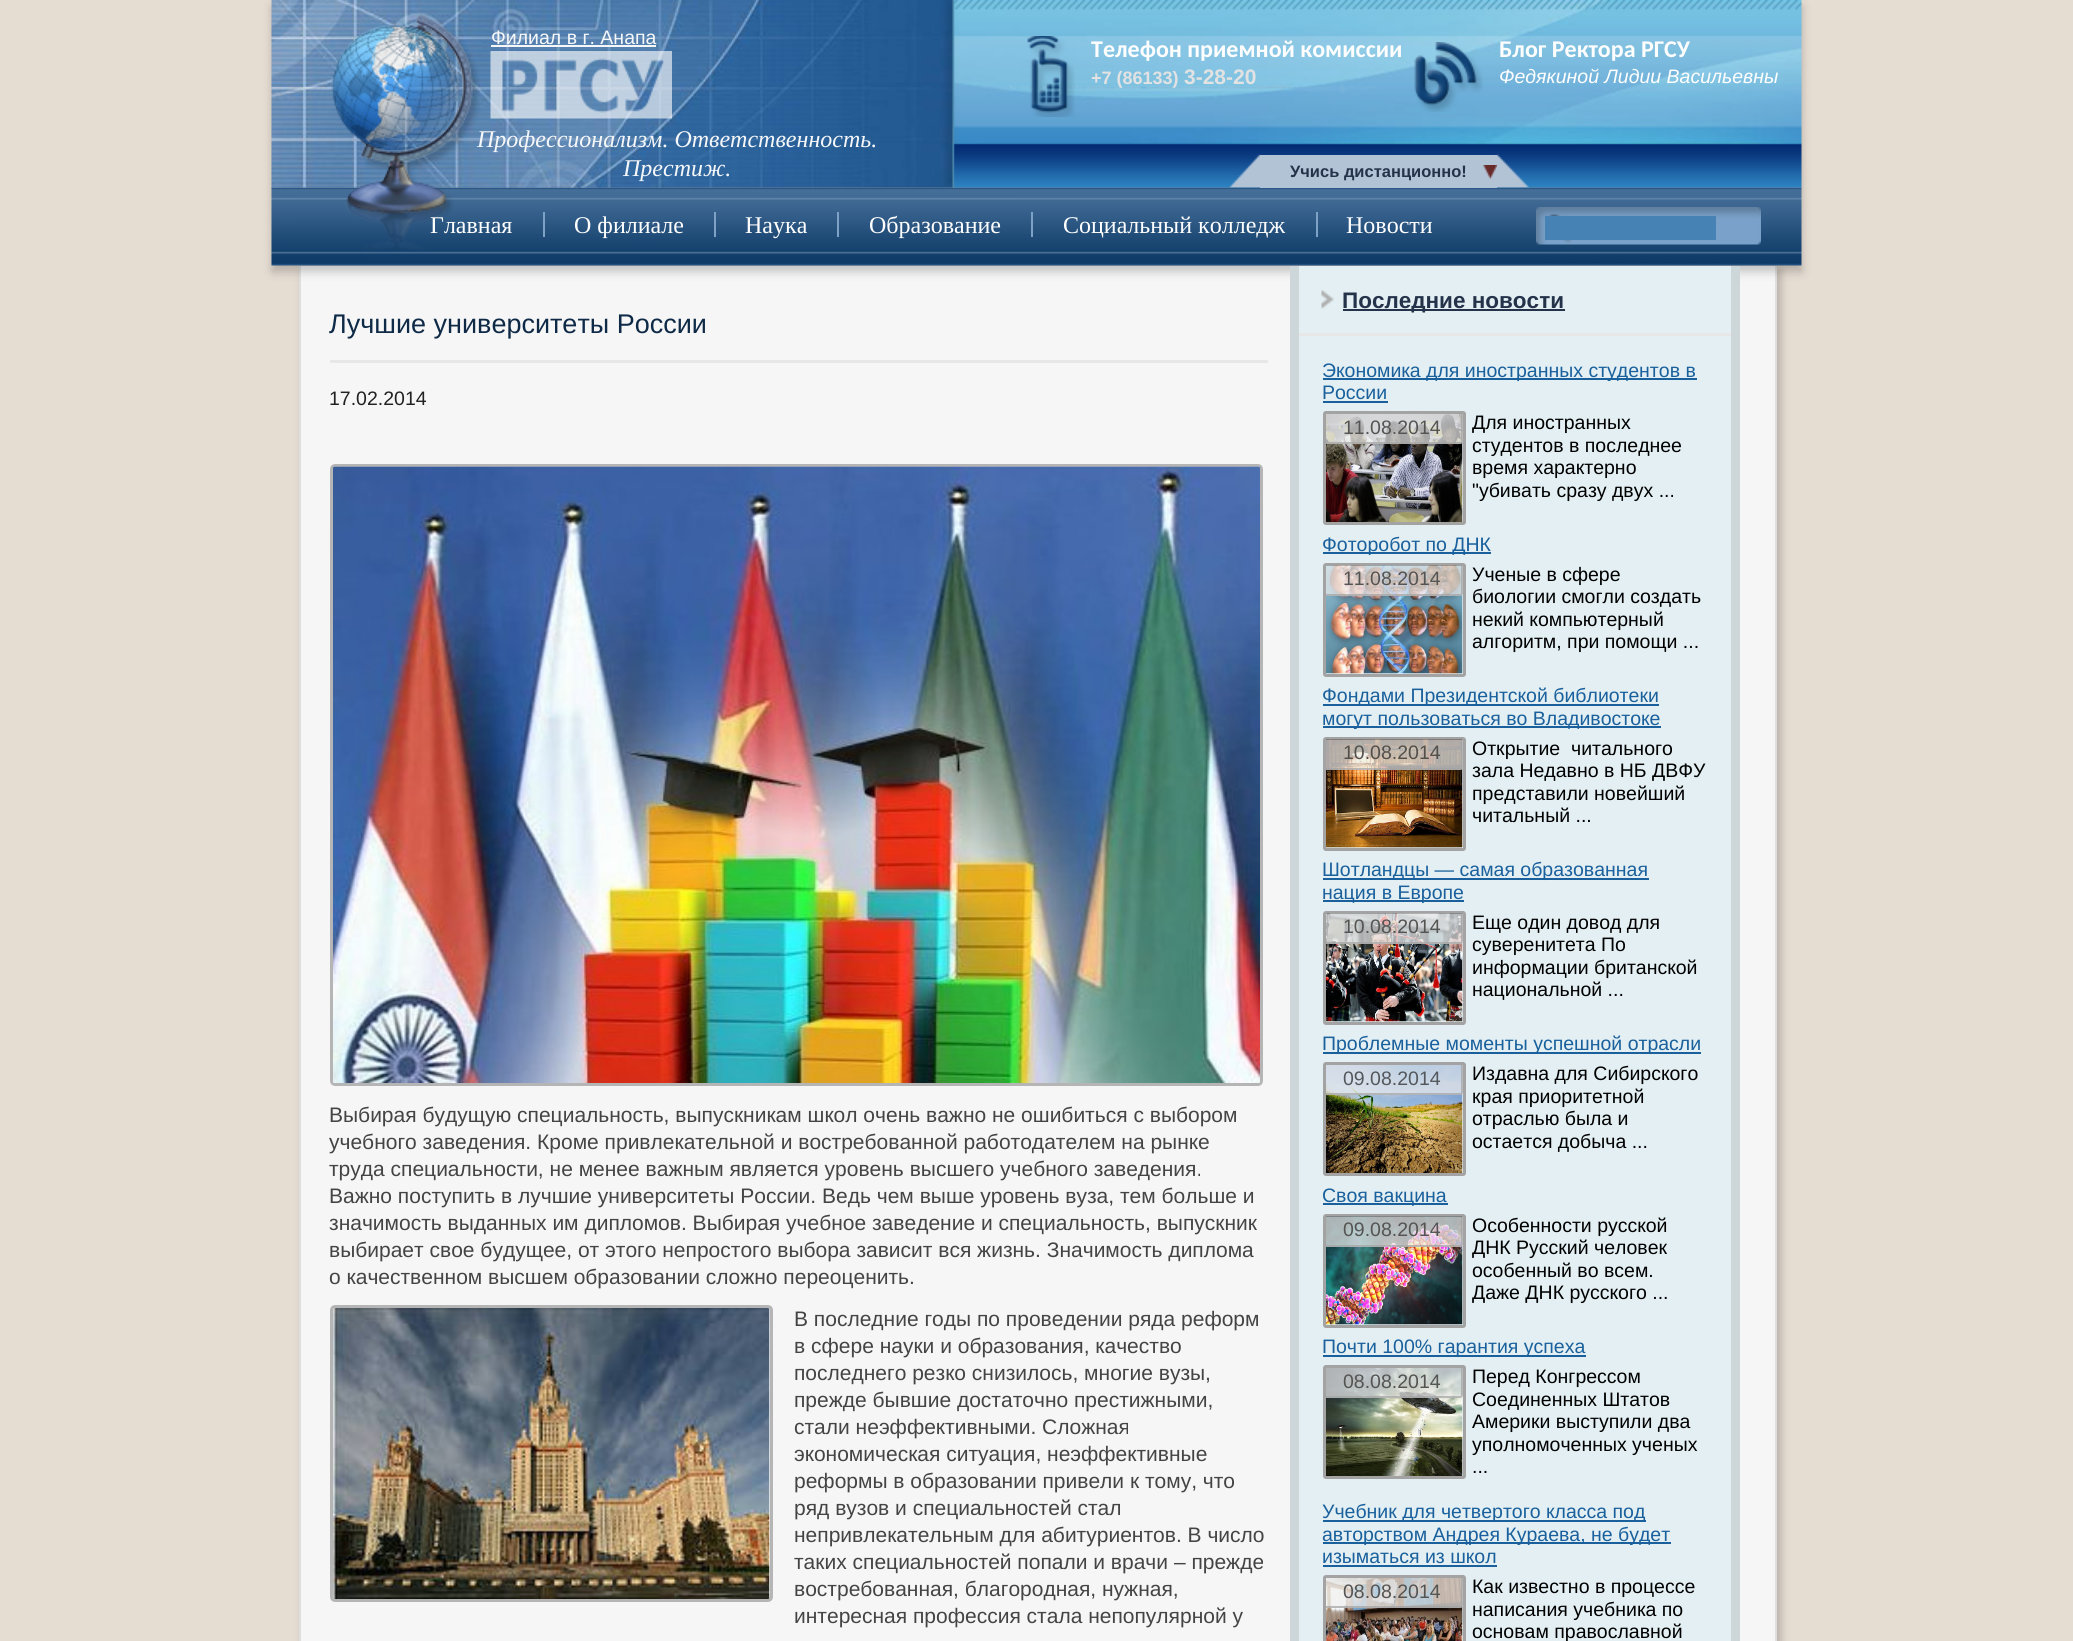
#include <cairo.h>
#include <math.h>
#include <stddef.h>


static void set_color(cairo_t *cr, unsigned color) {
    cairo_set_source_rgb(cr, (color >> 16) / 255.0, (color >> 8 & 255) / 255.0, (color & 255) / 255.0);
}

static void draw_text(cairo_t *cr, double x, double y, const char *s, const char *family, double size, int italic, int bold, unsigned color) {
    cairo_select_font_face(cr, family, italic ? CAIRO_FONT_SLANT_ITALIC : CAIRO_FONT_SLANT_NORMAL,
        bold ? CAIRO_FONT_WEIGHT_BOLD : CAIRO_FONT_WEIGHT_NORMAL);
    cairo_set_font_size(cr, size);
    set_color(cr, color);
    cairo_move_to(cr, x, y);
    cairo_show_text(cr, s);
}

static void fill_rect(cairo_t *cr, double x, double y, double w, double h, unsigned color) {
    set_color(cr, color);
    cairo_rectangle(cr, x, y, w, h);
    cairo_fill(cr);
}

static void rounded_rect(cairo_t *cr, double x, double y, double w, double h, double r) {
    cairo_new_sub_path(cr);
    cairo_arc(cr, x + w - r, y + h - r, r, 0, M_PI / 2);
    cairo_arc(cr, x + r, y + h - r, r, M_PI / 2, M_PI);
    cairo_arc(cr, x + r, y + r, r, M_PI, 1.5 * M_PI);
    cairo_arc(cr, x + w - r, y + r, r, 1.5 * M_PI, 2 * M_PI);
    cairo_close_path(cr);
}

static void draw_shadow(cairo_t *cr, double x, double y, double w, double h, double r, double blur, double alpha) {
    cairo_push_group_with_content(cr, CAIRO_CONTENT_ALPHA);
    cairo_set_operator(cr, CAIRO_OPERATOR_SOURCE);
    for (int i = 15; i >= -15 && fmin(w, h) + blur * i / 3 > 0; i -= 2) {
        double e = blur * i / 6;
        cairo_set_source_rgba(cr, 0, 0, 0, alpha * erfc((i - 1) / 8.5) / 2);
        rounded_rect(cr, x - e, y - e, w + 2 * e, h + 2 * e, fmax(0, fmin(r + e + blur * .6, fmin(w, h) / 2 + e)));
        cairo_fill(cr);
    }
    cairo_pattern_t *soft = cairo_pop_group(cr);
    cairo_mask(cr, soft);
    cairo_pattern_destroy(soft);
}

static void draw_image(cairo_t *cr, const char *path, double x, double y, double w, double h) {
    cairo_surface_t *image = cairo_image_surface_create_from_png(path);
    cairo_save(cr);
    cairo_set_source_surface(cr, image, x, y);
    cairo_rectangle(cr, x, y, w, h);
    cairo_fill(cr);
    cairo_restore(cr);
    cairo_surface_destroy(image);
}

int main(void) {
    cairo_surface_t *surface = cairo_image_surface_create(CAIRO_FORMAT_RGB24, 2073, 1641);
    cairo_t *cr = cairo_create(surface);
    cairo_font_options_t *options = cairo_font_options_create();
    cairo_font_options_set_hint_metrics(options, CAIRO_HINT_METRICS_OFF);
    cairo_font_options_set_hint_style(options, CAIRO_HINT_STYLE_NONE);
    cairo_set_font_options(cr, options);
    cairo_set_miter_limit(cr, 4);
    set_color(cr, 0xE5DCD2);
    cairo_paint(cr);
    set_color(cr, 0x000000);
    draw_shadow(cr, 303, 270, 1478, 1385, 0, 4.5, 0.2);
    fill_rect(cr, 301, 266, 1474, 1375, 0xF6F6F6);
    fill_rect(cr, 1775, 266, 2, 1375, 0xDFDFDF);
    fill_rect(cr, 299, 266, 2, 1375, 0xDFDFDF);
    set_color(cr, 0x000000);
    draw_shadow(cr, 272, 6, 1530, 266, 0, 4.5, 0.2);
    draw_image(cr, "assets/img1.png", 271, 187, 1531, 79);
    draw_image(cr, "assets/img2.png", 271, 0, 1531, 188);
    draw_image(cr, "assets/img3.png", 331, 15, 149, 235);
    draw_text(cr, 491, 44, "Филиал в г. Анапа", "Liberation Sans", 19.5, 0, 0, 0xF5F7F9);
    fill_rect(cr, 491, 45, 165, 2, 0xF5F7F9);
    draw_image(cr, "assets/img4.png", 490, 51, 182, 68);
    draw_text(cr, 477, 147, "Профессионализм. Ответственность.", "Liberation Serif", 24, 1, 0, 0xF5F7F9);
    draw_text(cr, 623, 176, "Престиж.", "Liberation Serif", 24, 1, 0, 0xF5F7F9);
    draw_image(cr, "assets/img5.png", 1027, 36, 48, 81);
    draw_text(cr, 1091, 57, "Телефон приемной комиссии", "Carlito", 24, 0, 1, 0xFEFEFE);
    draw_text(cr, 1091, 84, "+7 (86133)", "Liberation Sans", 18, 0, 1, 0xE2E2E2);
    draw_text(cr, 1184, 84, "3-28-20", "Liberation Sans", 21, 0, 1, 0xE2E2E2);
    draw_image(cr, "assets/img6.png", 1414, 42, 69, 70);
    draw_text(cr, 1499, 57, "Блог Ректора РГСУ", "Carlito", 24, 0, 1, 0xFEFEFE);
    draw_text(cr, 1499, 83, "Федякиной Лидии Васильевны", "Liberation Sans", 19.5, 1, 0, 0xFEFEFE);
    fill_rect(cr, 1260, 155, 237, 33, 0xB2C3D6);
    draw_image(cr, "assets/img7.png", 1483, 165, 14, 14);
    draw_image(cr, "assets/img8.png", 1229, 154, 31, 34);
    draw_text(cr, 1290, 177, "Учись дистанционно!", "Liberation Sans", 16.5, 0, 1, 0x25334A);
    draw_image(cr, "assets/img9.png", 1497, 154, 32, 34);
    draw_text(cr, 430, 233, "Главная", "Liberation Serif", 24, 0, 0, 0xFEFEFE);
    draw_text(cr, 574, 233, "О филиале", "Liberation Serif", 24, 0, 0, 0xFEFEFE);
    fill_rect(cr, 543, 212, 2, 25, 0x7EA2C5);
    draw_text(cr, 745, 233, "Наука", "Liberation Serif", 24, 0, 0, 0xFEFEFE);
    fill_rect(cr, 714, 212, 2, 25, 0x7EA2C5);
    draw_text(cr, 869, 233, "Образование", "Liberation Serif", 24, 0, 0, 0xFEFEFE);
    fill_rect(cr, 837, 212, 2, 25, 0x7EA2C5);
    draw_text(cr, 1063, 233, "Социальный колледж", "Liberation Serif", 24, 0, 0, 0xFEFEFE);
    fill_rect(cr, 1031, 212, 2, 25, 0x7EA2C5);
    draw_text(cr, 1346, 233, "Новости", "Liberation Serif", 24, 0, 0, 0xFEFEFE);
    fill_rect(cr, 1316, 212, 2, 25, 0x7EA2C5);
    draw_image(cr, "assets/img10.png", 1536, 207, 225, 38);
    fill_rect(cr, 1545, 216, 171, 24, 0x4682B4);
    draw_text(cr, 329, 333, "Лучшие университеты России", "Liberation Sans", 27, 0, 0, 0x0F2A47);
    fill_rect(cr, 330, 360, 938, 3, 0xE7E7E7);
    draw_text(cr, 329, 405, "17.02.2014", "Liberation Sans", 19.5, 0, 0, 0x212121);
    rounded_rect(cr, 331.5, 465.5, 930, 619, 3.5);
    set_color(cr, 0xB5B5B5);
    cairo_set_line_width(cr, 3);
    cairo_stroke(cr);
    draw_image(cr, "assets/img11.png", 333, 466, 927, 617);
    draw_text(cr, 329, 1122, "Выбирая будущую специальность, выпускникам школ очень важно не ошибиться с выбором", "Liberation Sans", 21, 0, 0, 0x444444);
    draw_text(cr, 329, 1149, "учебного заведения. Кроме привлекательной и востребованной работодателем на рынке", "Liberation Sans", 21, 0, 0, 0x444444);
    draw_text(cr, 329, 1176, "труда специальности, не менее важным является уровень высшего учебного заведения.", "Liberation Sans", 21, 0, 0, 0x444444);
    draw_text(cr, 329, 1203, "Важно поступить в лучшие университеты России. Ведь чем выше уровень вуза, тем больше и", "Liberation Sans", 21, 0, 0, 0x444444);
    draw_text(cr, 329, 1230, "значимость выданных им дипломов. Выбирая учебное заведение и специальность, выпускник", "Liberation Sans", 21, 0, 0, 0x444444);
    draw_text(cr, 329, 1257, "выбирает свое будущее, от этого непростого выбора зависит вся жизнь. Значимость диплома", "Liberation Sans", 21, 0, 0, 0x444444);
    draw_text(cr, 329, 1284, "о качественном высшем образовании сложно переоценить.", "Liberation Sans", 21, 0, 0, 0x444444);
    rounded_rect(cr, 331.5, 1306.5, 440, 294, 3.5);
    set_color(cr, 0xB5B5B5);
    cairo_stroke(cr);
    draw_image(cr, "assets/img12.png", 333, 1308, 437, 291);
    draw_text(cr, 794, 1326, "В последние годы по проведении ряда реформ", "Liberation Sans", 21, 0, 0, 0x444444);
    draw_text(cr, 794, 1353, "в сфере науки и образования, качество", "Liberation Sans", 21, 0, 0, 0x444444);
    draw_text(cr, 794, 1380, "последнего резко снизилось, многие вузы,", "Liberation Sans", 21, 0, 0, 0x444444);
    draw_text(cr, 794, 1407, "прежде бывшие достаточно престижными,", "Liberation Sans", 21, 0, 0, 0x444444);
    draw_text(cr, 794, 1434, "стали неэффективными. Сложная", "Liberation Sans", 21, 0, 0, 0x444444);
    draw_text(cr, 794, 1461, "экономическая ситуация, неэффективные", "Liberation Sans", 21, 0, 0, 0x444444);
    draw_text(cr, 794, 1488, "реформы в образовании привели к тому, что", "Liberation Sans", 21, 0, 0, 0x444444);
    draw_text(cr, 794, 1515, "ряд вузов и специальностей стал", "Liberation Sans", 21, 0, 0, 0x444444);
    draw_text(cr, 794, 1542, "непривлекательным для абитуриентов. В число", "Liberation Sans", 21, 0, 0, 0x444444);
    draw_text(cr, 794, 1569, "таких специальностей попали и врачи – прежде", "Liberation Sans", 21, 0, 0, 0x444444);
    draw_text(cr, 794, 1596, "востребованная, благородная, нужная,", "Liberation Sans", 21, 0, 0, 0x444444);
    draw_text(cr, 794, 1623, "интересная профессия стала непопулярной у", "Liberation Sans", 21, 0, 0, 0x444444);
    fill_rect(cr, 1299, 266, 432, 1375, 0xE3EFF3);
    fill_rect(cr, 1731, 266, 9, 1375, 0xCDD6D9);
    fill_rect(cr, 1290, 266, 9, 1375, 0xCDD6D9);
    draw_image(cr, "assets/img13.png", 1321, 289, 13, 20);
    fill_rect(cr, 1343, 309, 222, 2, 0x25334A);
    draw_text(cr, 1342, 308, "Последние новости", "Liberation Sans", 22.5, 0, 1, 0x25334A);
    fill_rect(cr, 1299, 333, 432, 3, 0xE7E7E7);
    fill_rect(cr, 1323, 378, 374, 2, 0x19609C);
    draw_text(cr, 1322, 377, "Экономика для иностранных студентов в", "Liberation Sans", 19.5, 0, 0, 0x19609C);
    draw_text(cr, 1322, 399, "России", "Liberation Sans", 19.5, 0, 0, 0x19609C);
    fill_rect(cr, 1323, 401, 65, 2, 0x19609C);
    rounded_rect(cr, 1324.5, 412.5, 140, 111, 1.5);
    set_color(cr, 0xA3A3A3);
    cairo_stroke(cr);
    draw_image(cr, "assets/img14.png", 1326, 414, 137, 108);
    cairo_set_source_rgba(cr, 0.933, 0.933, 0.933, 0.7);
    cairo_new_path(cr);
    cairo_move_to(cr, 1326, 414);
    cairo_line_to(cr, 1463, 414);
    cairo_line_to(cr, 1463, 441);
    cairo_curve_to(cr, 1463, 442.5, 1461.5, 444, 1460, 444);
    cairo_line_to(cr, 1326, 444);
    cairo_close_path(cr);
    cairo_fill(cr);
    cairo_save(cr);
    cairo_rectangle(cr, 1326, 414, 137, 108);
    cairo_clip(cr);
    rounded_rect(cr, 1324, 412, 138, 31, 2);
    cairo_set_source_rgba(cr, 0.639, 0.639, 0.639, 0.7);
    cairo_set_line_width(cr, 2);
    cairo_stroke(cr);
    cairo_restore(cr);
    draw_text(cr, 1343, 434, "11.08.2014", "Liberation Sans", 19.5, 0, 0, 0x545453);
    draw_text(cr, 1472, 429, "Для иностранных", "Liberation Sans", 19.5, 0, 0, 0x000000);
    draw_text(cr, 1472, 452, "студентов в последнее", "Liberation Sans", 19.5, 0, 0, 0x000000);
    draw_text(cr, 1472, 474, "время характерно", "Liberation Sans", 19.5, 0, 0, 0x000000);
    draw_text(cr, 1472, 497, "\"убивать сразу двух ...", "Liberation Sans", 19.5, 0, 0, 0x000000);
    fill_rect(cr, 1323, 552, 168, 2, 0x19609C);
    draw_text(cr, 1322, 551, "Фоторобот по ДНК", "Liberation Sans", 19.5, 0, 0, 0x19609C);
    rounded_rect(cr, 1324.5, 564.5, 140, 111, 1.5);
    set_color(cr, 0xA3A3A3);
    cairo_stroke(cr);
    draw_image(cr, "assets/img15.png", 1326, 565, 137, 109);
    cairo_set_source_rgba(cr, 0.933, 0.933, 0.933, 0.7);
    cairo_new_path(cr);
    cairo_move_to(cr, 1326, 566);
    cairo_line_to(cr, 1463, 566);
    cairo_line_to(cr, 1463, 593);
    cairo_curve_to(cr, 1463, 594.5, 1461.5, 596, 1460, 596);
    cairo_line_to(cr, 1326, 596);
    cairo_close_path(cr);
    cairo_fill(cr);
    cairo_save(cr);
    cairo_rectangle(cr, 1326, 566, 137, 108);
    cairo_clip(cr);
    rounded_rect(cr, 1324, 564, 138, 31, 2);
    cairo_set_source_rgba(cr, 0.639, 0.639, 0.639, 0.7);
    cairo_set_line_width(cr, 2);
    cairo_stroke(cr);
    cairo_restore(cr);
    draw_text(cr, 1343, 585, "11.08.2014", "Liberation Sans", 19.5, 0, 0, 0x545453);
    draw_text(cr, 1472, 581, "Ученые в сфере", "Liberation Sans", 19.5, 0, 0, 0x000000);
    draw_text(cr, 1472, 603, "биологии смогли создать", "Liberation Sans", 19.5, 0, 0, 0x000000);
    draw_text(cr, 1472, 626, "некий компьютерный", "Liberation Sans", 19.5, 0, 0, 0x000000);
    draw_text(cr, 1472, 648, "алгоритм, при помощи ...", "Liberation Sans", 19.5, 0, 0, 0x000000);
    fill_rect(cr, 1323, 704, 336, 2, 0x19609C);
    draw_text(cr, 1322, 702, "Фондами Президентской библиотеки", "Liberation Sans", 19.5, 0, 0, 0x19609C);
    fill_rect(cr, 1323, 726, 338, 2, 0x19609C);
    draw_text(cr, 1322, 725, "могут пользоваться во Владивостоке", "Liberation Sans", 19.5, 0, 0, 0x19609C);
    rounded_rect(cr, 1324.5, 738.5, 140, 111, 1.5);
    set_color(cr, 0xA3A3A3);
    cairo_stroke(cr);
    draw_image(cr, "assets/img16.png", 1326, 739, 137, 109);
    cairo_set_source_rgba(cr, 0.933, 0.933, 0.933, 0.7);
    cairo_new_path(cr);
    cairo_move_to(cr, 1326, 740);
    cairo_line_to(cr, 1463, 740);
    cairo_line_to(cr, 1463, 767);
    cairo_curve_to(cr, 1463, 768.5, 1461.5, 770, 1460, 770);
    cairo_line_to(cr, 1326, 770);
    cairo_close_path(cr);
    cairo_fill(cr);
    cairo_save(cr);
    cairo_rectangle(cr, 1326, 740, 137, 108);
    cairo_clip(cr);
    rounded_rect(cr, 1324, 738, 138, 31, 2);
    cairo_set_source_rgba(cr, 0.639, 0.639, 0.639, 0.7);
    cairo_set_line_width(cr, 2);
    cairo_stroke(cr);
    cairo_restore(cr);
    draw_text(cr, 1343, 759, "10.08.2014", "Liberation Sans", 19.5, 0, 0, 0x524F4B);
    draw_text(cr, 1472, 755, "Открытие  читального", "Liberation Sans", 19.5, 0, 0, 0x000000);
    draw_text(cr, 1472, 777, "зала Недавно в НБ ДВФУ", "Liberation Sans", 19.5, 0, 0, 0x000000);
    draw_text(cr, 1472, 800, "представили новейший", "Liberation Sans", 19.5, 0, 0, 0x000000);
    draw_text(cr, 1472, 822, "читальный ...", "Liberation Sans", 19.5, 0, 0, 0x000000);
    fill_rect(cr, 1323, 878, 326, 2, 0x19609C);
    draw_text(cr, 1322, 876, "Шотландцы — самая образованная", "Liberation Sans", 19.5, 0, 0, 0x19609C);
    fill_rect(cr, 1323, 900, 141, 2, 0x19609C);
    draw_text(cr, 1322, 899, "нация в Европе", "Liberation Sans", 19.5, 0, 0, 0x19609C);
    rounded_rect(cr, 1324.5, 912.5, 140, 111, 1.5);
    set_color(cr, 0xA3A3A3);
    cairo_stroke(cr);
    draw_image(cr, "assets/img17.png", 1326, 913, 137, 109);
    cairo_set_source_rgba(cr, 0.933, 0.933, 0.933, 0.7);
    cairo_new_path(cr);
    cairo_move_to(cr, 1326, 914);
    cairo_line_to(cr, 1463, 914);
    cairo_line_to(cr, 1463, 941);
    cairo_curve_to(cr, 1463, 942.5, 1461.5, 944, 1460, 944);
    cairo_line_to(cr, 1326, 944);
    cairo_close_path(cr);
    cairo_fill(cr);
    cairo_save(cr);
    cairo_rectangle(cr, 1326, 914, 137, 108);
    cairo_clip(cr);
    rounded_rect(cr, 1324, 912, 138, 31, 2);
    cairo_set_source_rgba(cr, 0.639, 0.639, 0.639, 0.7);
    cairo_set_line_width(cr, 2);
    cairo_stroke(cr);
    cairo_restore(cr);
    draw_text(cr, 1343, 933, "10.08.2014", "Liberation Sans", 19.5, 0, 0, 0x545453);
    draw_text(cr, 1472, 929, "Еще один довод для", "Liberation Sans", 19.5, 0, 0, 0x000000);
    draw_text(cr, 1472, 951, "суверенитета По", "Liberation Sans", 19.5, 0, 0, 0x000000);
    draw_text(cr, 1472, 974, "информации британской", "Liberation Sans", 19.5, 0, 0, 0x000000);
    draw_text(cr, 1472, 996, "национальной ...", "Liberation Sans", 19.5, 0, 0, 0x000000);
    fill_rect(cr, 1323, 1052, 378, 2, 0x19609C);
    draw_text(cr, 1322, 1050, "Проблемные моменты успешной отрасли", "Liberation Sans", 19.5, 0, 0, 0x19609C);
    rounded_rect(cr, 1324.5, 1063.5, 140, 111, 1.5);
    set_color(cr, 0xA3A3A3);
    cairo_stroke(cr);
    draw_image(cr, "assets/img18.png", 1326, 1065, 137, 108);
    cairo_set_source_rgba(cr, 0.933, 0.933, 0.933, 0.7);
    cairo_new_path(cr);
    cairo_move_to(cr, 1326, 1065);
    cairo_line_to(cr, 1463, 1065);
    cairo_line_to(cr, 1463, 1092);
    cairo_curve_to(cr, 1463, 1093.5, 1461.5, 1095, 1460, 1095);
    cairo_line_to(cr, 1326, 1095);
    cairo_close_path(cr);
    cairo_fill(cr);
    cairo_save(cr);
    cairo_rectangle(cr, 1326, 1065, 137, 108);
    cairo_clip(cr);
    rounded_rect(cr, 1324, 1063, 138, 31, 2);
    cairo_set_source_rgba(cr, 0.639, 0.639, 0.639, 0.7);
    cairo_set_line_width(cr, 2);
    cairo_stroke(cr);
    cairo_restore(cr);
    draw_text(cr, 1343, 1085, "09.08.2014", "Liberation Sans", 19.5, 0, 0, 0x54585C);
    draw_text(cr, 1472, 1080, "Издавна для Сибирского", "Liberation Sans", 19.5, 0, 0, 0x000000);
    draw_text(cr, 1472, 1103, "края приоритетной", "Liberation Sans", 19.5, 0, 0, 0x000000);
    draw_text(cr, 1472, 1125, "отраслью была и", "Liberation Sans", 19.5, 0, 0, 0x000000);
    draw_text(cr, 1472, 1148, "остается добыча ...", "Liberation Sans", 19.5, 0, 0, 0x000000);
    fill_rect(cr, 1323, 1203, 125, 2, 0x19609C);
    draw_text(cr, 1322, 1202, "Своя вакцина", "Liberation Sans", 19.5, 0, 0, 0x19609C);
    rounded_rect(cr, 1324.5, 1215.5, 140, 111, 1.5);
    set_color(cr, 0xA3A3A3);
    cairo_stroke(cr);
    draw_image(cr, "assets/img19.png", 1326, 1216, 137, 109);
    cairo_set_source_rgba(cr, 0.933, 0.933, 0.933, 0.7);
    cairo_new_path(cr);
    cairo_move_to(cr, 1326, 1217);
    cairo_line_to(cr, 1463, 1217);
    cairo_line_to(cr, 1463, 1244);
    cairo_curve_to(cr, 1463, 1245.5, 1461.5, 1247, 1460, 1247);
    cairo_line_to(cr, 1326, 1247);
    cairo_close_path(cr);
    cairo_fill(cr);
    cairo_save(cr);
    cairo_rectangle(cr, 1326, 1217, 137, 108);
    cairo_clip(cr);
    rounded_rect(cr, 1324, 1215, 138, 31, 2);
    cairo_set_source_rgba(cr, 0.639, 0.639, 0.639, 0.7);
    cairo_set_line_width(cr, 2);
    cairo_stroke(cr);
    cairo_restore(cr);
    draw_text(cr, 1343, 1236, "09.08.2014", "Liberation Sans", 19.5, 0, 0, 0x545453);
    draw_text(cr, 1472, 1232, "Особенности русской", "Liberation Sans", 19.5, 0, 0, 0x000000);
    draw_text(cr, 1472, 1254, "ДНК Русский человек", "Liberation Sans", 19.5, 0, 0, 0x000000);
    draw_text(cr, 1472, 1277, "особенный во всем.", "Liberation Sans", 19.5, 0, 0, 0x000000);
    draw_text(cr, 1472, 1299, "Даже ДНК русского ...", "Liberation Sans", 19.5, 0, 0, 0x000000);
    fill_rect(cr, 1323, 1355, 263, 2, 0x19609C);
    draw_text(cr, 1322, 1353, "Почти 100% гарантия успеха", "Liberation Sans", 19.5, 0, 0, 0x19609C);
    rounded_rect(cr, 1324.5, 1366.5, 140, 111, 1.5);
    set_color(cr, 0xA3A3A3);
    cairo_stroke(cr);
    draw_image(cr, "assets/img20.png", 1326, 1368, 137, 108);
    cairo_set_source_rgba(cr, 0.933, 0.933, 0.933, 0.7);
    cairo_new_path(cr);
    cairo_move_to(cr, 1326, 1368);
    cairo_line_to(cr, 1463, 1368);
    cairo_line_to(cr, 1463, 1395);
    cairo_curve_to(cr, 1463, 1396.5, 1461.5, 1398, 1460, 1398);
    cairo_line_to(cr, 1326, 1398);
    cairo_close_path(cr);
    cairo_fill(cr);
    cairo_save(cr);
    cairo_rectangle(cr, 1326, 1368, 137, 108);
    cairo_clip(cr);
    rounded_rect(cr, 1324, 1366, 138, 31, 2);
    cairo_set_source_rgba(cr, 0.639, 0.639, 0.639, 0.7);
    cairo_set_line_width(cr, 2);
    cairo_stroke(cr);
    cairo_restore(cr);
    draw_text(cr, 1343, 1388, "08.08.2014", "Liberation Sans", 19.5, 0, 0, 0x545453);
    draw_text(cr, 1472, 1383, "Перед Конгрессом", "Liberation Sans", 19.5, 0, 0, 0x000000);
    draw_text(cr, 1472, 1406, "Соединенных Штатов", "Liberation Sans", 19.5, 0, 0, 0x000000);
    draw_text(cr, 1472, 1428, "Америки выступили два", "Liberation Sans", 19.5, 0, 0, 0x000000);
    draw_text(cr, 1472, 1451, "уполномоченных ученых", "Liberation Sans", 19.5, 0, 0, 0x000000);
    draw_text(cr, 1472, 1473, "...", "Liberation Sans", 19.5, 0, 0, 0x000000);
    fill_rect(cr, 1323, 1520, 323, 2, 0x19609C);
    draw_text(cr, 1322, 1518, "Учебник для четвертого класса под", "Liberation Sans", 19.5, 0, 0, 0x19609C);
    fill_rect(cr, 1323, 1542, 348, 2, 0x19609C);
    draw_text(cr, 1322, 1541, "авторством Андрея Кураева, не будет", "Liberation Sans", 19.5, 0, 0, 0x19609C);
    draw_text(cr, 1322, 1563, "изыматься из школ", "Liberation Sans", 19.5, 0, 0, 0x19609C);
    fill_rect(cr, 1323, 1565, 174, 2, 0x19609C);
    rounded_rect(cr, 1324.5, 1576.5, 140, 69, 1.5);
    set_color(cr, 0xA3A3A3);
    cairo_stroke(cr);
    draw_image(cr, "assets/img21.png", 1326, 1578, 137, 63);
    cairo_set_source_rgba(cr, 0.933, 0.933, 0.933, 0.7);
    cairo_new_path(cr);
    cairo_move_to(cr, 1326, 1578);
    cairo_line_to(cr, 1463, 1578);
    cairo_line_to(cr, 1463, 1605);
    cairo_curve_to(cr, 1463, 1606.5, 1461.5, 1608, 1460, 1608);
    cairo_line_to(cr, 1326, 1608);
    cairo_close_path(cr);
    cairo_fill(cr);
    cairo_save(cr);
    cairo_rectangle(cr, 1326, 1578, 137, 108);
    cairo_clip(cr);
    rounded_rect(cr, 1324, 1576, 138, 31, 2);
    cairo_set_source_rgba(cr, 0.639, 0.639, 0.639, 0.7);
    cairo_set_line_width(cr, 2);
    cairo_stroke(cr);
    cairo_restore(cr);
    draw_text(cr, 1343, 1598, "08.08.2014", "Liberation Sans", 19.5, 0, 0, 0x545453);
    draw_text(cr, 1472, 1593, "Как известно в процессе", "Liberation Sans", 19.5, 0, 0, 0x000000);
    draw_text(cr, 1472, 1616, "написания учебника по", "Liberation Sans", 19.5, 0, 0, 0x000000);
    draw_text(cr, 1472, 1638, "основам православной", "Liberation Sans", 19.5, 0, 0, 0x000000);
    cairo_surface_write_to_png(surface, "output.png");
    cairo_font_options_destroy(options);
    cairo_destroy(cr);
    cairo_surface_destroy(surface);
    return 0;
}
